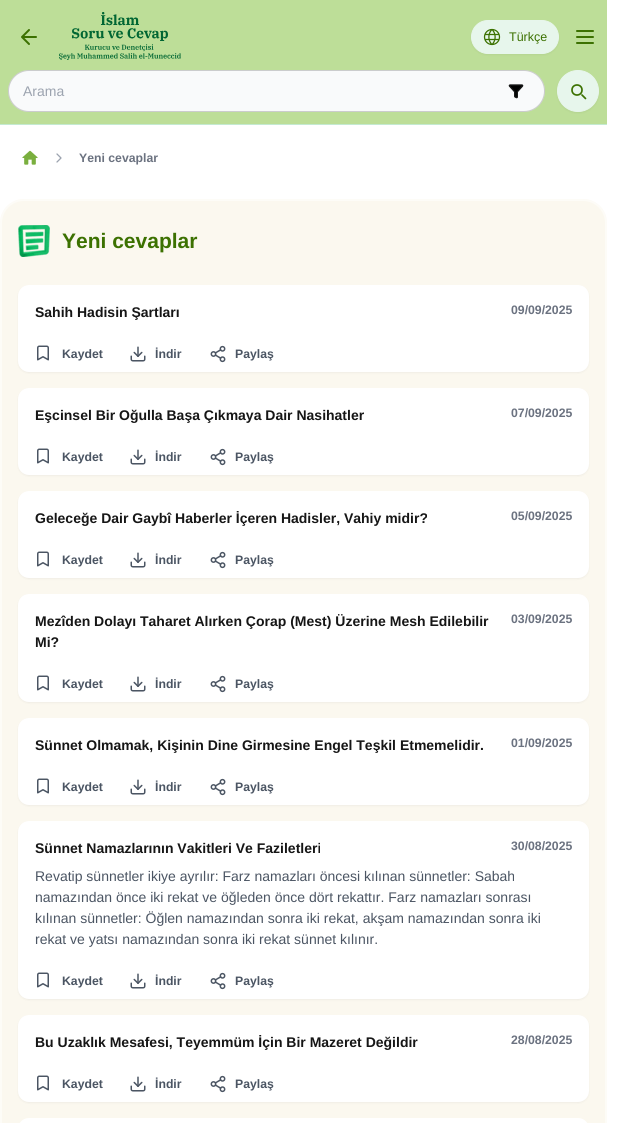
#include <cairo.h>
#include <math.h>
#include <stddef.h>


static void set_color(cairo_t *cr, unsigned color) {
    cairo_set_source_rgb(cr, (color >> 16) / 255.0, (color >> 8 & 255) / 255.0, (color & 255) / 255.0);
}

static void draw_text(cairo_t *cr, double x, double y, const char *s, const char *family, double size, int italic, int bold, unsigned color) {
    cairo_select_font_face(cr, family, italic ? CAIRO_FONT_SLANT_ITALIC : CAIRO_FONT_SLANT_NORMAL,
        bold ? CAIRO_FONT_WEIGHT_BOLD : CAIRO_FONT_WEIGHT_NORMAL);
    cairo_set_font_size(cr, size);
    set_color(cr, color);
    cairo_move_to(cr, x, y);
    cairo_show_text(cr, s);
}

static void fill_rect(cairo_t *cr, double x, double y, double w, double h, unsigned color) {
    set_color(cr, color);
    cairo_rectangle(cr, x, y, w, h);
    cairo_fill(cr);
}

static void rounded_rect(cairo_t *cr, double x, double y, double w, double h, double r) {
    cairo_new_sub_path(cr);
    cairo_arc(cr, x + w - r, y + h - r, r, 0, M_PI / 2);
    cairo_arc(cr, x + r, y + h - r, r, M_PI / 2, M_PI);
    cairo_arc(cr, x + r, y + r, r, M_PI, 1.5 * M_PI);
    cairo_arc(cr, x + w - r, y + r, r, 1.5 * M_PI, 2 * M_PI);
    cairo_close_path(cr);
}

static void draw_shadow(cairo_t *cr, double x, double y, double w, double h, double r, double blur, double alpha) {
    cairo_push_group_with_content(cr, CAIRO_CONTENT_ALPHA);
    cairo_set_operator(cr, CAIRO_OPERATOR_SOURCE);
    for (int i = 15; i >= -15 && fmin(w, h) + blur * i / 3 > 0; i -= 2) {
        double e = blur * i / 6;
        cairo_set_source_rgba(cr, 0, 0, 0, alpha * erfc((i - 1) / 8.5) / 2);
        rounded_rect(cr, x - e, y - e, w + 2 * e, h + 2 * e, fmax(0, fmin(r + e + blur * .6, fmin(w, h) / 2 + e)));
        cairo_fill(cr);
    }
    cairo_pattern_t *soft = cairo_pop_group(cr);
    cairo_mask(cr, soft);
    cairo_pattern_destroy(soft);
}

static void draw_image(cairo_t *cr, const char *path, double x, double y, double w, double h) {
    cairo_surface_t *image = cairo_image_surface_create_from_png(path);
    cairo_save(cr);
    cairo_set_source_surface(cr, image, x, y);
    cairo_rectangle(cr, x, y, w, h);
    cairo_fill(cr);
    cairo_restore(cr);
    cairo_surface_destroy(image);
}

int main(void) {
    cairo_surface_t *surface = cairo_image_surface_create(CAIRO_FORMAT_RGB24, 622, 1123);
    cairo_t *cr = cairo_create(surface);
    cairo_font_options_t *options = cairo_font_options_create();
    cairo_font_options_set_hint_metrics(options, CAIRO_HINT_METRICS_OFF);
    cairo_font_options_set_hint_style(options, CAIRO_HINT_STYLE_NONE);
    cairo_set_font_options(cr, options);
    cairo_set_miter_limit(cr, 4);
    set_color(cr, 0xFFFFFF);
    cairo_paint(cr);
    fill_rect(cr, 0, 0, 607, 124, 0xBDDE98);
    fill_rect(cr, 0, 124, 607, 1, 0xC4EAD1);
    cairo_new_path(cr);
    cairo_move_to(cr, 29, 44);
    cairo_line_to(cr, 22, 37);
    cairo_line_to(cr, 29, 30);
    cairo_move_to(cr, 36, 37);
    cairo_line_to(cr, 22, 37);
    set_color(cr, 0x3C7101);
    cairo_set_line_cap(cr, CAIRO_LINE_CAP_ROUND);
    cairo_set_line_join(cr, CAIRO_LINE_JOIN_ROUND);
    cairo_stroke(cr);
    draw_image(cr, "assets/img1.png", 59, 12, 122, 48);
    set_color(cr, 0x000000);
    draw_shadow(cr, 471, 21, 88, 34, 17, 1, 0.05);
    set_color(cr, 0xE7F6EC);
    rounded_rect(cr, 471.5, 20.5, 87, 33, 16.5);
    cairo_fill_preserve(cr);
    cairo_set_line_width(cr, 1);
    cairo_set_line_cap(cr, CAIRO_LINE_CAP_BUTT);
    cairo_set_line_join(cr, CAIRO_LINE_JOIN_MITER);
    cairo_stroke(cr);
    draw_image(cr, "assets/img2.png", 483, 28, 18, 18);
    draw_text(cr, 509, 41, "Türkçe", "Liberation Sans", 12.5, 0, 0, 0x3C7101);
    draw_image(cr, "assets/img3.png", 576, 30, 18, 14);
    set_color(cr, 0xF9FAFB);
    rounded_rect(cr, 8, 70, 537, 42, 21);
    cairo_fill(cr);
    rounded_rect(cr, 8.5, 70.5, 536, 41, 20.5);
    cairo_set_source_rgba(cr, 0.086, 0.086, 0.086, 0.2);
    cairo_stroke(cr);
    draw_text(cr, 23, 96, "Arama", "Liberation Sans", 14, 0, 0, 0x9CA3AF);
    draw_image(cr, "assets/img4.png", 508, 84, 16, 15);
    set_color(cr, 0x000000);
    draw_shadow(cr, 557, 71, 42, 42, 21, 1, 0.05);
    set_color(cr, 0xE7F6EC);
    cairo_arc(cr, 578, 91, 20.5, 0, 2 * M_PI);
    cairo_fill_preserve(cr);
    cairo_stroke(cr);
    cairo_new_path(cr);
    cairo_move_to(cr, 585.5, 98.5);
    cairo_line_to(cr, 582, 95);
    set_color(cr, 0x3C7101);
    cairo_set_line_width(cr, 1.7);
    cairo_set_line_cap(cr, CAIRO_LINE_CAP_ROUND);
    cairo_set_line_join(cr, CAIRO_LINE_JOIN_ROUND);
    cairo_stroke(cr);
    cairo_arc(cr, 577, 90, 5, 0, 2 * M_PI);
    cairo_set_line_cap(cr, CAIRO_LINE_CAP_BUTT);
    cairo_set_line_join(cr, CAIRO_LINE_JOIN_MITER);
    cairo_stroke(cr);
    draw_image(cr, "assets/img5.png", 22, 150, 16, 15);
    cairo_new_path(cr);
    cairo_move_to(cr, 57, 162);
    cairo_line_to(cr, 61, 158);
    cairo_line_to(cr, 57, 154);
    set_color(cr, 0x9CA3AF);
    cairo_set_line_width(cr, 1.3);
    cairo_set_line_cap(cr, CAIRO_LINE_CAP_ROUND);
    cairo_set_line_join(cr, CAIRO_LINE_JOIN_ROUND);
    cairo_stroke(cr);
    draw_text(cr, 79, 162, "Yeni cevaplar", "Liberation Sans", 12.25, 0, 1, 0x6B7280);
    set_color(cr, 0xFBF8EF);
    rounded_rect(cr, 0, 199, 607, 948, 24);
    cairo_fill(cr);
    rounded_rect(cr, 1, 200, 605, 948, 23);
    cairo_set_source_rgba(cr, 1, 1, 1, 0.5);
    cairo_set_line_width(cr, 2);
    cairo_set_line_cap(cr, CAIRO_LINE_CAP_BUTT);
    cairo_set_line_join(cr, CAIRO_LINE_JOIN_MITER);
    cairo_stroke(cr);
    draw_image(cr, "assets/img6.png", 18, 225, 32, 32);
    draw_text(cr, 62, 248, "Yeni cevaplar", "Liberation Sans", 21, 0, 1, 0x3C7101);
    set_color(cr, 0x000000);
    draw_shadow(cr, 18, 286, 571, 87, 11, 1, 0.05);
    set_color(cr, 0xFFFFFF);
    rounded_rect(cr, 18, 285, 571, 87, 11);
    cairo_fill(cr);
    draw_text(cr, 35, 317, "Sahih Hadisin Şartları", "Liberation Sans", 14, 0, 1, 0x161616);
    draw_text(cr, 511, 314, "09/09/2025", "Liberation Sans", 12.25, 0, 1, 0x6B7280);
    draw_image(cr, "assets/img7.png", 37, 345, 12, 16);
    draw_text(cr, 62, 358, "Kaydet", "Liberation Sans", 12.25, 0, 1, 0x4B5563);
    draw_image(cr, "assets/img8.png", 130, 346, 16, 16);
    draw_text(cr, 155, 358, "İndir", "Liberation Sans", 12.25, 0, 1, 0x4B5563);
    draw_image(cr, "assets/img9.png", 210, 345, 16, 18);
    draw_text(cr, 235, 358, "Paylaş", "Liberation Sans", 12.25, 0, 1, 0x4B5563);
    set_color(cr, 0x000000);
    draw_shadow(cr, 18, 389, 571, 87, 11, 1, 0.05);
    set_color(cr, 0xFFFFFF);
    rounded_rect(cr, 18, 388, 571, 87, 11);
    cairo_fill(cr);
    draw_text(cr, 35, 420, "Eşcinsel Bir Oğulla Başa Çıkmaya Dair Nasihatler", "Liberation Sans", 14, 0, 1, 0x161616);
    draw_text(cr, 511, 417, "07/09/2025", "Liberation Sans", 12.25, 0, 1, 0x6B7280);
    draw_image(cr, "assets/img7.png", 37, 448, 12, 16);
    draw_text(cr, 62, 461, "Kaydet", "Liberation Sans", 12.25, 0, 1, 0x4B5563);
    draw_image(cr, "assets/img8.png", 130, 449, 16, 16);
    draw_text(cr, 155, 461, "İndir", "Liberation Sans", 12.25, 0, 1, 0x4B5563);
    draw_image(cr, "assets/img9.png", 210, 448, 16, 18);
    draw_text(cr, 235, 461, "Paylaş", "Liberation Sans", 12.25, 0, 1, 0x4B5563);
    set_color(cr, 0x000000);
    draw_shadow(cr, 18, 492, 571, 87, 11, 1, 0.05);
    set_color(cr, 0xFFFFFF);
    rounded_rect(cr, 18, 491, 571, 87, 11);
    cairo_fill(cr);
    draw_text(cr, 35, 523, "Geleceğe Dair Gaybî Haberler İçeren Hadisler, Vahiy midir?", "Liberation Sans", 14, 0, 1, 0x161616);
    draw_text(cr, 511, 520, "05/09/2025", "Liberation Sans", 12.25, 0, 1, 0x6B7280);
    draw_image(cr, "assets/img7.png", 37, 551, 12, 16);
    draw_text(cr, 62, 564, "Kaydet", "Liberation Sans", 12.25, 0, 1, 0x4B5563);
    draw_image(cr, "assets/img8.png", 130, 552, 16, 16);
    draw_text(cr, 155, 564, "İndir", "Liberation Sans", 12.25, 0, 1, 0x4B5563);
    draw_image(cr, "assets/img9.png", 210, 551, 16, 18);
    draw_text(cr, 235, 564, "Paylaş", "Liberation Sans", 12.25, 0, 1, 0x4B5563);
    set_color(cr, 0x000000);
    draw_shadow(cr, 18, 595, 571, 108, 11, 1, 0.05);
    set_color(cr, 0xFFFFFF);
    rounded_rect(cr, 18, 594, 571, 108, 11);
    cairo_fill(cr);
    draw_text(cr, 35, 626, "Mezîden Dolayı Taharet Alırken Çorap (Mest) Üzerine Mesh Edilebilir", "Liberation Sans", 14, 0, 1, 0x161616);
    draw_text(cr, 35, 647, "Mi?", "Liberation Sans", 14, 0, 1, 0x161616);
    draw_text(cr, 511, 623, "03/09/2025", "Liberation Sans", 12.25, 0, 1, 0x6B7280);
    draw_image(cr, "assets/img7.png", 37, 675, 12, 16);
    draw_text(cr, 62, 688, "Kaydet", "Liberation Sans", 12.25, 0, 1, 0x4B5563);
    draw_image(cr, "assets/img8.png", 130, 676, 16, 16);
    draw_text(cr, 155, 688, "İndir", "Liberation Sans", 12.25, 0, 1, 0x4B5563);
    draw_image(cr, "assets/img9.png", 210, 675, 16, 18);
    draw_text(cr, 235, 688, "Paylaş", "Liberation Sans", 12.25, 0, 1, 0x4B5563);
    set_color(cr, 0x000000);
    draw_shadow(cr, 18, 719, 571, 87, 11, 1, 0.05);
    set_color(cr, 0xFFFFFF);
    rounded_rect(cr, 18, 718, 571, 87, 11);
    cairo_fill(cr);
    draw_text(cr, 35, 750, "Sünnet Olmamak, Kişinin Dine Girmesine Engel Teşkil Etmemelidir.", "Liberation Sans", 14, 0, 1, 0x161616);
    draw_text(cr, 511, 747, "01/09/2025", "Liberation Sans", 12.25, 0, 1, 0x6B7280);
    draw_image(cr, "assets/img7.png", 37, 778, 12, 16);
    draw_text(cr, 62, 791, "Kaydet", "Liberation Sans", 12.25, 0, 1, 0x4B5563);
    draw_image(cr, "assets/img8.png", 130, 779, 16, 16);
    draw_text(cr, 155, 791, "İndir", "Liberation Sans", 12.25, 0, 1, 0x4B5563);
    draw_image(cr, "assets/img9.png", 210, 778, 16, 18);
    draw_text(cr, 235, 791, "Paylaş", "Liberation Sans", 12.25, 0, 1, 0x4B5563);
    set_color(cr, 0x000000);
    draw_shadow(cr, 18, 822, 571, 178, 11, 1, 0.05);
    set_color(cr, 0xFFFFFF);
    rounded_rect(cr, 18, 821, 571, 178, 11);
    cairo_fill(cr);
    draw_text(cr, 35, 853, "Sünnet Namazlarının Vakitleri Ve Faziletleri", "Liberation Sans", 14, 0, 1, 0x161616);
    draw_text(cr, 511, 850, "30/08/2025", "Liberation Sans", 12.25, 0, 1, 0x6B7280);
    draw_text(cr, 35, 881, "Revatip sünnetler ikiye ayrılır: Farz namazları öncesi kılınan sünnetler: Sabah", "Liberation Sans", 14, 0, 0, 0x4B5563);
    draw_text(cr, 35, 902, "namazından önce iki rekat ve öğleden önce dört rekattır. Farz namazları sonrası", "Liberation Sans", 14, 0, 0, 0x4B5563);
    draw_text(cr, 35, 923, "kılınan sünnetler: Öğlen namazından sonra iki rekat, akşam namazından sonra iki", "Liberation Sans", 14, 0, 0, 0x4B5563);
    draw_text(cr, 35, 944, "rekat ve yatsı namazından sonra iki rekat sünnet kılınır.", "Liberation Sans", 14, 0, 0, 0x4B5563);
    draw_image(cr, "assets/img7.png", 37, 972, 12, 16);
    draw_text(cr, 62, 985, "Kaydet", "Liberation Sans", 12.25, 0, 1, 0x4B5563);
    draw_image(cr, "assets/img8.png", 130, 973, 16, 16);
    draw_text(cr, 155, 985, "İndir", "Liberation Sans", 12.25, 0, 1, 0x4B5563);
    draw_image(cr, "assets/img9.png", 210, 972, 16, 18);
    draw_text(cr, 235, 985, "Paylaş", "Liberation Sans", 12.25, 0, 1, 0x4B5563);
    set_color(cr, 0x000000);
    draw_shadow(cr, 18, 1016, 571, 87, 11, 1, 0.05);
    set_color(cr, 0xFFFFFF);
    rounded_rect(cr, 18, 1015, 571, 87, 11);
    cairo_fill(cr);
    draw_text(cr, 35, 1047, "Bu Uzaklık Mesafesi, Teyemmüm İçin Bir Mazeret Değildir", "Liberation Sans", 14, 0, 1, 0x161616);
    draw_text(cr, 511, 1044, "28/08/2025", "Liberation Sans", 12.25, 0, 1, 0x6B7280);
    draw_image(cr, "assets/img7.png", 37, 1075, 12, 16);
    draw_text(cr, 62, 1088, "Kaydet", "Liberation Sans", 12.25, 0, 1, 0x4B5563);
    draw_image(cr, "assets/img8.png", 130, 1076, 16, 16);
    draw_text(cr, 155, 1088, "İndir", "Liberation Sans", 12.25, 0, 1, 0x4B5563);
    draw_image(cr, "assets/img9.png", 210, 1075, 16, 18);
    draw_text(cr, 235, 1088, "Paylaş", "Liberation Sans", 12.25, 0, 1, 0x4B5563);
    set_color(cr, 0xFFFFFF);
    rounded_rect(cr, 18, 1118, 571, 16, 11);
    cairo_fill(cr);
    cairo_surface_write_to_png(surface, "output.png");
    cairo_font_options_destroy(options);
    cairo_destroy(cr);
    cairo_surface_destroy(surface);
    return 0;
}
